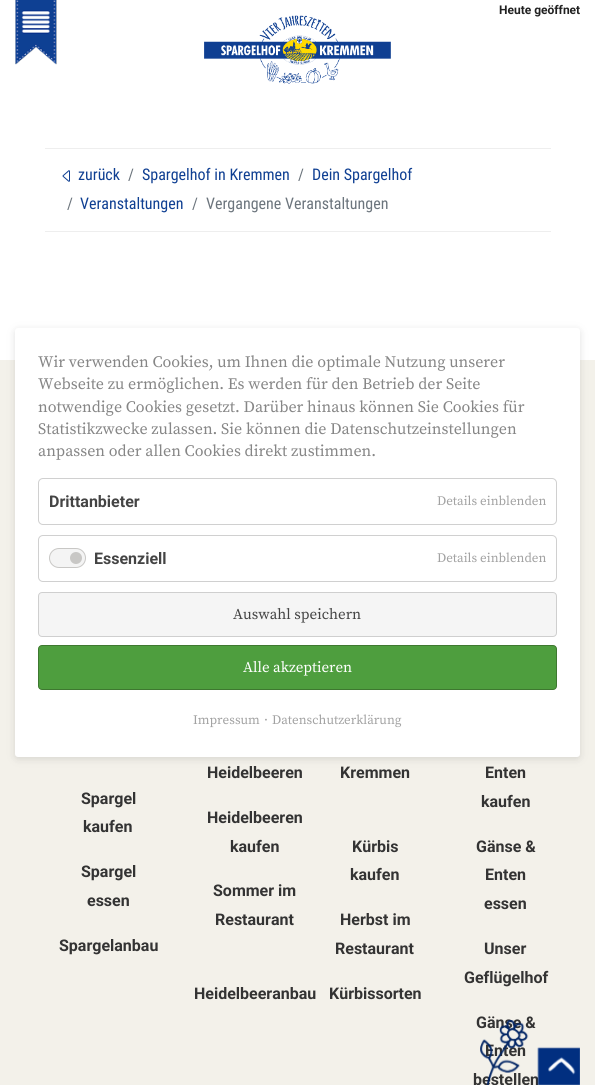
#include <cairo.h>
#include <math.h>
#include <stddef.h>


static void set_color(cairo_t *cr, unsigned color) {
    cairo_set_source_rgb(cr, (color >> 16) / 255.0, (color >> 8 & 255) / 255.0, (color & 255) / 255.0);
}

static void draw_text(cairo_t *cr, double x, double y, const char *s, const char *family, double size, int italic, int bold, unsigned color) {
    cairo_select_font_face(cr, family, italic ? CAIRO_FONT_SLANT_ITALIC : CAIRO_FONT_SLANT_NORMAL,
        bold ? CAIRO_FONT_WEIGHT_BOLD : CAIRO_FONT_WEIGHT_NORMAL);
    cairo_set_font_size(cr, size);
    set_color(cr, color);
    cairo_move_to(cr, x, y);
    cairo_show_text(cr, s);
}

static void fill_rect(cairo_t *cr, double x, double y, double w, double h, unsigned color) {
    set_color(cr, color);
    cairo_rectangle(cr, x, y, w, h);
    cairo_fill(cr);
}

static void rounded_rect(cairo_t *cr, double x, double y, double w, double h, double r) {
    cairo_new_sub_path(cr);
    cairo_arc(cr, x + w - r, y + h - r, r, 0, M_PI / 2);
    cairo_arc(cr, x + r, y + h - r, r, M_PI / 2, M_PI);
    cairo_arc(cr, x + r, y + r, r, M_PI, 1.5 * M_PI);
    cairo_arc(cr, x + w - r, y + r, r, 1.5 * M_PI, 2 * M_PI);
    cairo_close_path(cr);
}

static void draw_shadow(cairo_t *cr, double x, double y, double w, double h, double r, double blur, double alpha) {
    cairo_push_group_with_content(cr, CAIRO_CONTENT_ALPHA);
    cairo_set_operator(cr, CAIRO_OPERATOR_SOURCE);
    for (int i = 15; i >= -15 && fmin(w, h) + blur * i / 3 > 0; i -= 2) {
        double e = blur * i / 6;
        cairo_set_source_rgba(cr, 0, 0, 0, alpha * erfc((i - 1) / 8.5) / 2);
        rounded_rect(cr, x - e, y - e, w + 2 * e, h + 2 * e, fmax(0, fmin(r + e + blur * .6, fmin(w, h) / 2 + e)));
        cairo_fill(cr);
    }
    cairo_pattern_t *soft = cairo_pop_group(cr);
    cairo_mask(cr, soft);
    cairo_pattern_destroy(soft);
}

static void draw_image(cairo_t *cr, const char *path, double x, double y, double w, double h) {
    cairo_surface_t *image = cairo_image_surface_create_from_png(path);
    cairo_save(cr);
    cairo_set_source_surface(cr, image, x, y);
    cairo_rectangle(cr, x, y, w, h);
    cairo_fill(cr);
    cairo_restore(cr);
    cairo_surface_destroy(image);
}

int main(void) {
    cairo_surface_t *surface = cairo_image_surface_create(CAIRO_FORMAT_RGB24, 595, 1085);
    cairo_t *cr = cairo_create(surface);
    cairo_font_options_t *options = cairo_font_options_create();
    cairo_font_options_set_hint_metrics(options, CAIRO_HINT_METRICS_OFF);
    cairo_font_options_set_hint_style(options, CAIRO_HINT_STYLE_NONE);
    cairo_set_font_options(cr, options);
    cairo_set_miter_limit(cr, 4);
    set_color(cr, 0xFFFFFF);
    cairo_paint(cr);
    draw_image(cr, "assets/img1.png", 15, 0, 42, 65);
    draw_text(cr, 499, 14, "Heute geöffnet", "Roboto", 12, 0, 1, 0x212121);
    draw_image(cr, "assets/img2.png", 204, 15, 187, 69);
    fill_rect(cr, 45, 148, 506, 1, 0xEEEEEE);
    fill_rect(cr, 45, 231, 506, 1, 0xEEEEEE);
    draw_image(cr, "assets/img3.png", 62, 170, 8, 12);
    draw_text(cr, 78, 180, "zurück", "Roboto Condensed", 16, 0, 0, 0x0F3F92);
    draw_text(cr, 128, 180, "/", "Roboto Condensed", 16, 0, 0, 0x6C757D);
    draw_text(cr, 142, 180, "Spargelhof in Kremmen", "Roboto Condensed", 16, 0, 0, 0x0F3F92);
    draw_text(cr, 298, 180, "/", "Roboto Condensed", 16, 0, 0, 0x6C757D);
    draw_text(cr, 312, 180, "Dein Spargelhof", "Roboto Condensed", 16, 0, 0, 0x0F3F92);
    draw_text(cr, 67, 209, "/", "Roboto Condensed", 16, 0, 0, 0x6C757D);
    draw_text(cr, 80, 209, "Veranstaltungen", "Roboto Condensed", 16, 0, 0, 0x0F3F92);
    draw_text(cr, 192, 209, "/", "Roboto Condensed", 16, 0, 0, 0x6C757D);
    draw_text(cr, 206, 209, "Vergangene Veranstaltungen", "Roboto Condensed", 16, 0, 0, 0x6C757D);
    fill_rect(cr, 0, 360, 595, 725, 0xF3F1EA);
    draw_text(cr, 81, 804, "Spargel", "Roboto", 16, 0, 1, 0x333333);
    draw_text(cr, 83, 832, "kaufen", "Roboto", 16, 0, 1, 0x333333);
    draw_text(cr, 81, 877, "Spargel", "Roboto", 16, 0, 1, 0x333333);
    draw_text(cr, 87, 906, "essen", "Roboto", 16, 0, 1, 0x333333);
    draw_text(cr, 59, 951, "Spargelanbau", "Roboto", 16, 0, 1, 0x333333);
    draw_text(cr, 207, 778, "Heidelbeeren", "Roboto", 16, 0, 1, 0x333333);
    draw_text(cr, 207, 823, "Heidelbeeren", "Roboto", 16, 0, 1, 0x333333);
    draw_text(cr, 230, 852, "kaufen", "Roboto", 16, 0, 1, 0x333333);
    draw_text(cr, 213, 896, "Sommer im", "Roboto", 16, 0, 1, 0x333333);
    draw_text(cr, 215, 925, "Restaurant", "Roboto", 16, 0, 1, 0x333333);
    draw_text(cr, 194, 999, "Heidelbeeranbau", "Roboto", 16, 0, 1, 0x333333);
    draw_text(cr, 340, 778, "Kremmen", "Roboto", 16, 0, 1, 0x333333);
    draw_text(cr, 352, 852, "Kürbis", "Roboto", 16, 0, 1, 0x333333);
    draw_text(cr, 350, 880, "kaufen", "Roboto", 16, 0, 1, 0x333333);
    draw_text(cr, 340, 925, "Herbst im", "Roboto", 16, 0, 1, 0x333333);
    draw_text(cr, 335, 954, "Restaurant", "Roboto", 16, 0, 1, 0x333333);
    draw_text(cr, 329, 999, "Kürbissorten", "Roboto", 16, 0, 1, 0x333333);
    draw_text(cr, 485, 778, "Enten", "Roboto", 16, 0, 1, 0x333333);
    draw_text(cr, 481, 807, "kaufen", "Roboto", 16, 0, 1, 0x333333);
    draw_text(cr, 476, 852, "Gänse &", "Roboto", 16, 0, 1, 0x333333);
    draw_text(cr, 485, 880, "Enten", "Roboto", 16, 0, 1, 0x333333);
    draw_text(cr, 484, 909, "essen", "Roboto", 16, 0, 1, 0x333333);
    draw_text(cr, 484, 954, "Unser", "Roboto", 16, 0, 1, 0x333333);
    draw_text(cr, 464, 983, "Geflügelhof", "Roboto", 16, 0, 1, 0x333333);
    draw_text(cr, 476, 1028, "Gänse &", "Roboto", 16, 0, 1, 0x333333);
    draw_text(cr, 485, 1056, "Enten", "Roboto", 16, 0, 1, 0x333333);
    draw_text(cr, 473, 1085, "bestellen", "Roboto", 16, 0, 1, 0x333333);
    draw_image(cr, "assets/img4.png", 480, 1020, 100, 65);
    set_color(cr, 0x636363);
    draw_shadow(cr, 15, 330, 565, 429, 3, 4, 0.2);
    set_color(cr, 0xFFFFFF);
    rounded_rect(cr, 15, 328, 565, 429, 3);
    cairo_fill(cr);
    draw_text(cr, 38, 367, "Wir verwenden Cookies, um Ihnen die optimale Nutzung unserer", "Source Serif Pro", 16, 0, 0, 0x868686);
    draw_text(cr, 38, 389, "Webseite zu ermöglichen. Es werden für den Betrieb der Seite", "Source Serif Pro", 16, 0, 0, 0x868686);
    draw_text(cr, 38, 412, "notwendige Cookies gesetzt. Darüber hinaus können Sie Cookies für", "Source Serif Pro", 16, 0, 0, 0x868686);
    draw_text(cr, 38, 434, "Statistikzwecke zulassen. Sie können die Datenschutzeinstellungen", "Source Serif Pro", 16, 0, 0, 0x868686);
    draw_text(cr, 38, 456, "anpassen oder allen Cookies direkt zustimmen.", "Source Serif Pro", 16, 0, 0, 0x868686);
    rounded_rect(cr, 38.5, 478.5, 518, 46, 4.5);
    set_color(cr, 0xD0D0D0);
    cairo_set_line_width(cr, 1);
    cairo_stroke(cr);
    draw_text(cr, 49, 507, "Drittanbieter", "Roboto", 16, 0, 1, 0x444444);
    draw_text(cr, 437, 505, "Details einblenden", "Source Serif Pro", 13, 0, 0, 0xA2A2A2);
    rounded_rect(cr, 38.5, 535.5, 518, 46, 4.5);
    set_color(cr, 0xD0D0D0);
    cairo_stroke(cr);
    set_color(cr, 0xF4F4F4);
    rounded_rect(cr, 49.5, 548.5, 36, 19, 9.5);
    cairo_fill_preserve(cr);
    set_color(cr, 0xC8C7C5);
    cairo_stroke(cr);
    cairo_arc(cr, 76, 558, 6, 0, 2 * M_PI);
    cairo_fill(cr);
    draw_text(cr, 94, 564, "Essenziell", "Roboto", 16, 0, 1, 0x444444);
    draw_text(cr, 437, 562, "Details einblenden", "Source Serif Pro", 13, 0, 0, 0xA2A2A2);
    set_color(cr, 0xF5F5F5);
    rounded_rect(cr, 38.5, 592.5, 518, 44, 3.5);
    cairo_fill_preserve(cr);
    set_color(cr, 0xCFCFCF);
    cairo_stroke(cr);
    draw_text(cr, 233, 619, "Auswahl speichern", "Source Serif Pro", 15, 0, 0, 0x444444);
    set_color(cr, 0x4E9E3E);
    rounded_rect(cr, 38.5, 645.5, 518, 44, 3.5);
    cairo_fill_preserve(cr);
    set_color(cr, 0x3E7830);
    cairo_stroke(cr);
    draw_text(cr, 243, 672, "Alle akzeptieren", "Source Serif Pro", 15, 0, 0, 0xFFFFFF);
    draw_text(cr, 193, 724, "Impressum", "Source Serif Pro", 13, 0, 0, 0xA2A2A2);
    draw_text(cr, 264, 724, "·", "Source Serif Pro", 13, 0, 0, 0xA2A2A2);
    draw_text(cr, 272, 724, "Datenschutzerklärung", "Source Serif Pro", 13, 0, 0, 0xA2A2A2);
    cairo_surface_write_to_png(surface, "output.png");
    cairo_font_options_destroy(options);
    cairo_destroy(cr);
    cairo_surface_destroy(surface);
    return 0;
}
